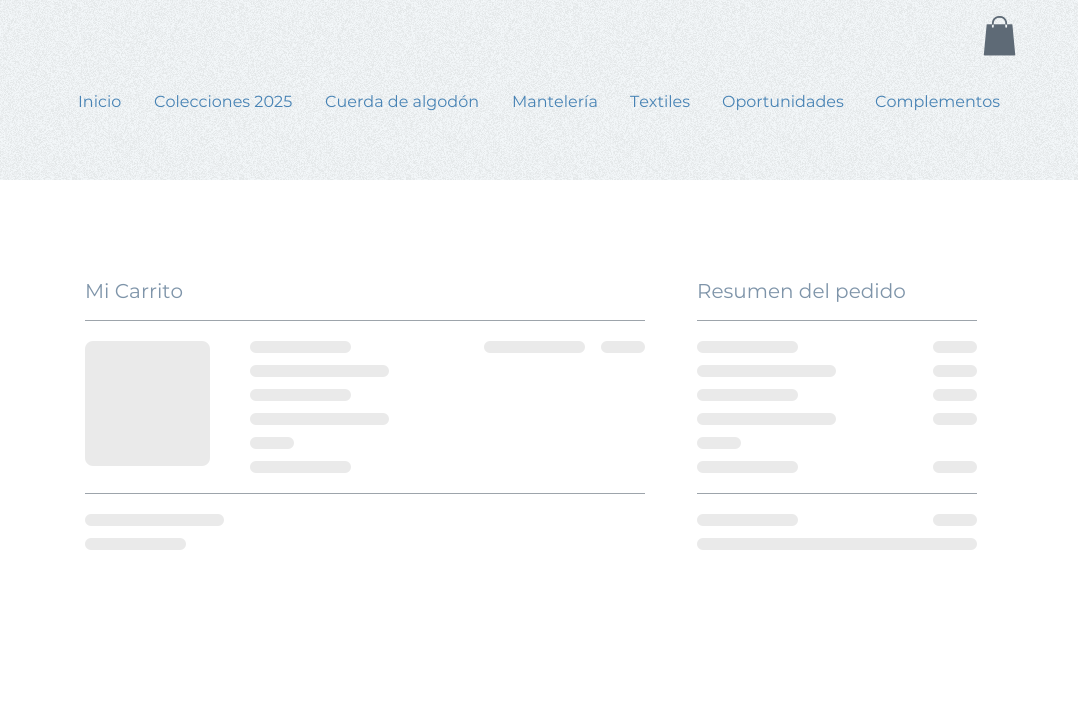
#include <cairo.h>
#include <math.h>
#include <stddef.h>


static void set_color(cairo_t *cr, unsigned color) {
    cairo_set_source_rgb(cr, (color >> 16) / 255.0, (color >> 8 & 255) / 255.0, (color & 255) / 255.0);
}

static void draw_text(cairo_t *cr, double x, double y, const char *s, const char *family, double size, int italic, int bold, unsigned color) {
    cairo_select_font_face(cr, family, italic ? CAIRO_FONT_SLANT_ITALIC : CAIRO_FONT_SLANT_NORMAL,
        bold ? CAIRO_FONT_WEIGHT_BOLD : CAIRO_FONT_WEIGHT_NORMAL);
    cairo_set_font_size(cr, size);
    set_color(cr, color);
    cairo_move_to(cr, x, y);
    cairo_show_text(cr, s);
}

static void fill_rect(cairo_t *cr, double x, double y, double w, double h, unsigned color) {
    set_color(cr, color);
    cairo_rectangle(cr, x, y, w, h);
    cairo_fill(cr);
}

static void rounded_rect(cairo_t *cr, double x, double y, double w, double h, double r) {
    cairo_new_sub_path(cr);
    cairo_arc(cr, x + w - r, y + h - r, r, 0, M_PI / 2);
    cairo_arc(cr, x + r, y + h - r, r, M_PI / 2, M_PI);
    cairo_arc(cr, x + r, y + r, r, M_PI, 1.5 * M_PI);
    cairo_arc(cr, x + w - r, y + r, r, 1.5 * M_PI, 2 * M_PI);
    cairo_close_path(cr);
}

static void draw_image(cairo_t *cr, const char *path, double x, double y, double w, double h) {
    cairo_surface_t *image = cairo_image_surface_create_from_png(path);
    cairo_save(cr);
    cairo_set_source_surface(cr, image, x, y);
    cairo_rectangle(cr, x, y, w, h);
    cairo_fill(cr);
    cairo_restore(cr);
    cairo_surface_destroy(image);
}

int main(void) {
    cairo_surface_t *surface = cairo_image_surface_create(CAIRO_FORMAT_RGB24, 1078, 727);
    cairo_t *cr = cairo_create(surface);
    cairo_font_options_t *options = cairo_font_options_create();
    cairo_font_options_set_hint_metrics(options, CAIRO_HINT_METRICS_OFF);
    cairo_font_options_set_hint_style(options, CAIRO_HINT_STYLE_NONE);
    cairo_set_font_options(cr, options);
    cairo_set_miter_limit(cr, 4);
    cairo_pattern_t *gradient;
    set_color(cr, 0xFFFFFF);
    cairo_paint(cr);
    fill_rect(cr, 0, 0, 1078, 180, 0xF3F7F9);
    draw_image(cr, "assets/img1.png", 0, 0, 1078, 180);
    draw_image(cr, "assets/img2.png", 983, 16, 33, 40);
    draw_text(cr, 78, 107, "Inicio", "Montserrat", 16, 0, 0, 0x4682B4);
    draw_text(cr, 154, 107, "Colecciones 2025", "Montserrat", 16, 0, 0, 0x4682B4);
    draw_text(cr, 325, 107, "Cuerda de algodón", "Montserrat", 16, 0, 0, 0x4682B4);
    draw_text(cr, 512, 107, "Mantelería", "Montserrat", 16, 0, 0, 0x4682B4);
    draw_text(cr, 630, 107, "Textiles", "Montserrat", 16, 0, 0, 0x4682B4);
    draw_text(cr, 722, 107, "Oportunidades", "Montserrat", 16, 0, 0, 0x4682B4);
    draw_text(cr, 875, 107, "Complementos", "Montserrat", 16, 0, 0, 0x4682B4);
    fill_rect(cr, 85, 320, 560, 1, 0x9DA4AB);
    draw_text(cr, 85, 298, "Mi Carrito", "Montserrat", 20, 0, 0, 0x7E94A9);
    gradient = cairo_pattern_create_linear(85, 404, 585, 404);
    cairo_pattern_add_color_stop_rgba(gradient, 0.25, 0.918, 0.918, 0.918, 1);
    cairo_pattern_add_color_stop_rgba(gradient, 0.37, 0.835, 0.835, 0.835, 1);
    cairo_pattern_add_color_stop_rgba(gradient, 0.63, 0.918, 0.918, 0.918, 1);
    cairo_set_source(cr, gradient);
    cairo_pattern_destroy(gradient);
    rounded_rect(cr, 85, 341, 125, 125, 8);
    cairo_fill(cr);
    gradient = cairo_pattern_create_linear(250, 347, 654, 347);
    cairo_pattern_add_color_stop_rgba(gradient, 0.25, 0.918, 0.918, 0.918, 1);
    cairo_pattern_add_color_stop_rgba(gradient, 0.37, 0.835, 0.835, 0.835, 1);
    cairo_pattern_add_color_stop_rgba(gradient, 0.63, 0.918, 0.918, 0.918, 1);
    cairo_set_source(cr, gradient);
    cairo_pattern_destroy(gradient);
    rounded_rect(cr, 250, 341, 101, 12, 6);
    cairo_fill(cr);
    gradient = cairo_pattern_create_linear(250, 371, 806, 371);
    cairo_pattern_add_color_stop_rgba(gradient, 0.25, 0.918, 0.918, 0.918, 1);
    cairo_pattern_add_color_stop_rgba(gradient, 0.37, 0.835, 0.835, 0.835, 1);
    cairo_pattern_add_color_stop_rgba(gradient, 0.63, 0.918, 0.918, 0.918, 1);
    cairo_set_source(cr, gradient);
    cairo_pattern_destroy(gradient);
    rounded_rect(cr, 250, 365, 139, 12, 6);
    cairo_fill(cr);
    gradient = cairo_pattern_create_linear(250, 395, 654, 395);
    cairo_pattern_add_color_stop_rgba(gradient, 0.25, 0.918, 0.918, 0.918, 1);
    cairo_pattern_add_color_stop_rgba(gradient, 0.37, 0.835, 0.835, 0.835, 1);
    cairo_pattern_add_color_stop_rgba(gradient, 0.63, 0.918, 0.918, 0.918, 1);
    cairo_set_source(cr, gradient);
    cairo_pattern_destroy(gradient);
    rounded_rect(cr, 250, 389, 101, 12, 6);
    cairo_fill(cr);
    gradient = cairo_pattern_create_linear(250, 419, 806, 419);
    cairo_pattern_add_color_stop_rgba(gradient, 0.25, 0.918, 0.918, 0.918, 1);
    cairo_pattern_add_color_stop_rgba(gradient, 0.37, 0.835, 0.835, 0.835, 1);
    cairo_pattern_add_color_stop_rgba(gradient, 0.63, 0.918, 0.918, 0.918, 1);
    cairo_set_source(cr, gradient);
    cairo_pattern_destroy(gradient);
    rounded_rect(cr, 250, 413, 139, 12, 6);
    cairo_fill(cr);
    gradient = cairo_pattern_create_linear(250, 443, 426, 443);
    cairo_pattern_add_color_stop_rgba(gradient, 0.25, 0.918, 0.918, 0.918, 1);
    cairo_pattern_add_color_stop_rgba(gradient, 0.37, 0.835, 0.835, 0.835, 1);
    cairo_pattern_add_color_stop_rgba(gradient, 0.63, 0.918, 0.918, 0.918, 1);
    cairo_set_source(cr, gradient);
    cairo_pattern_destroy(gradient);
    rounded_rect(cr, 250, 437, 44, 12, 6);
    cairo_fill(cr);
    gradient = cairo_pattern_create_linear(250, 467, 654, 467);
    cairo_pattern_add_color_stop_rgba(gradient, 0.25, 0.918, 0.918, 0.918, 1);
    cairo_pattern_add_color_stop_rgba(gradient, 0.37, 0.835, 0.835, 0.835, 1);
    cairo_pattern_add_color_stop_rgba(gradient, 0.63, 0.918, 0.918, 0.918, 1);
    cairo_set_source(cr, gradient);
    cairo_pattern_destroy(gradient);
    rounded_rect(cr, 250, 461, 101, 12, 6);
    cairo_fill(cr);
    gradient = cairo_pattern_create_linear(484, 347, 888, 347);
    cairo_pattern_add_color_stop_rgba(gradient, 0.25, 0.918, 0.918, 0.918, 1);
    cairo_pattern_add_color_stop_rgba(gradient, 0.37, 0.835, 0.835, 0.835, 1);
    cairo_pattern_add_color_stop_rgba(gradient, 0.63, 0.918, 0.918, 0.918, 1);
    cairo_set_source(cr, gradient);
    cairo_pattern_destroy(gradient);
    rounded_rect(cr, 484, 341, 101, 12, 6);
    cairo_fill(cr);
    gradient = cairo_pattern_create_linear(601, 347, 777, 347);
    cairo_pattern_add_color_stop_rgba(gradient, 0.25, 0.918, 0.918, 0.918, 1);
    cairo_pattern_add_color_stop_rgba(gradient, 0.37, 0.835, 0.835, 0.835, 1);
    cairo_pattern_add_color_stop_rgba(gradient, 0.63, 0.918, 0.918, 0.918, 1);
    cairo_set_source(cr, gradient);
    cairo_pattern_destroy(gradient);
    rounded_rect(cr, 601, 341, 44, 12, 6);
    cairo_fill(cr);
    fill_rect(cr, 85, 493, 560, 1, 0x9DA4AB);
    gradient = cairo_pattern_create_linear(85, 520, 641, 520);
    cairo_pattern_add_color_stop_rgba(gradient, 0.25, 0.918, 0.918, 0.918, 1);
    cairo_pattern_add_color_stop_rgba(gradient, 0.37, 0.835, 0.835, 0.835, 1);
    cairo_pattern_add_color_stop_rgba(gradient, 0.63, 0.918, 0.918, 0.918, 1);
    cairo_set_source(cr, gradient);
    cairo_pattern_destroy(gradient);
    rounded_rect(cr, 85, 514, 139, 12, 6);
    cairo_fill(cr);
    gradient = cairo_pattern_create_linear(85, 544, 489, 544);
    cairo_pattern_add_color_stop_rgba(gradient, 0.25, 0.918, 0.918, 0.918, 1);
    cairo_pattern_add_color_stop_rgba(gradient, 0.37, 0.835, 0.835, 0.835, 1);
    cairo_pattern_add_color_stop_rgba(gradient, 0.63, 0.918, 0.918, 0.918, 1);
    cairo_set_source(cr, gradient);
    cairo_pattern_destroy(gradient);
    rounded_rect(cr, 85, 538, 101, 12, 6);
    cairo_fill(cr);
    fill_rect(cr, 697, 320, 280, 1, 0x9DA4AB);
    draw_text(cr, 697, 298, "Resumen del pedido", "Montserrat", 20, 0, 0, 0x7E94A9);
    gradient = cairo_pattern_create_linear(697, 347, 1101, 347);
    cairo_pattern_add_color_stop_rgba(gradient, 0.25, 0.918, 0.918, 0.918, 1);
    cairo_pattern_add_color_stop_rgba(gradient, 0.37, 0.835, 0.835, 0.835, 1);
    cairo_pattern_add_color_stop_rgba(gradient, 0.63, 0.918, 0.918, 0.918, 1);
    cairo_set_source(cr, gradient);
    cairo_pattern_destroy(gradient);
    rounded_rect(cr, 697, 341, 101, 12, 6);
    cairo_fill(cr);
    gradient = cairo_pattern_create_linear(933, 347, 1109, 347);
    cairo_pattern_add_color_stop_rgba(gradient, 0.25, 0.918, 0.918, 0.918, 1);
    cairo_pattern_add_color_stop_rgba(gradient, 0.37, 0.835, 0.835, 0.835, 1);
    cairo_pattern_add_color_stop_rgba(gradient, 0.63, 0.918, 0.918, 0.918, 1);
    cairo_set_source(cr, gradient);
    cairo_pattern_destroy(gradient);
    rounded_rect(cr, 933, 341, 44, 12, 6);
    cairo_fill(cr);
    gradient = cairo_pattern_create_linear(697, 371, 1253, 371);
    cairo_pattern_add_color_stop_rgba(gradient, 0.25, 0.918, 0.918, 0.918, 1);
    cairo_pattern_add_color_stop_rgba(gradient, 0.37, 0.835, 0.835, 0.835, 1);
    cairo_pattern_add_color_stop_rgba(gradient, 0.63, 0.918, 0.918, 0.918, 1);
    cairo_set_source(cr, gradient);
    cairo_pattern_destroy(gradient);
    rounded_rect(cr, 697, 365, 139, 12, 6);
    cairo_fill(cr);
    gradient = cairo_pattern_create_linear(933, 371, 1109, 371);
    cairo_pattern_add_color_stop_rgba(gradient, 0.25, 0.918, 0.918, 0.918, 1);
    cairo_pattern_add_color_stop_rgba(gradient, 0.37, 0.835, 0.835, 0.835, 1);
    cairo_pattern_add_color_stop_rgba(gradient, 0.63, 0.918, 0.918, 0.918, 1);
    cairo_set_source(cr, gradient);
    cairo_pattern_destroy(gradient);
    rounded_rect(cr, 933, 365, 44, 12, 6);
    cairo_fill(cr);
    gradient = cairo_pattern_create_linear(697, 395, 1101, 395);
    cairo_pattern_add_color_stop_rgba(gradient, 0.25, 0.918, 0.918, 0.918, 1);
    cairo_pattern_add_color_stop_rgba(gradient, 0.37, 0.835, 0.835, 0.835, 1);
    cairo_pattern_add_color_stop_rgba(gradient, 0.63, 0.918, 0.918, 0.918, 1);
    cairo_set_source(cr, gradient);
    cairo_pattern_destroy(gradient);
    rounded_rect(cr, 697, 389, 101, 12, 6);
    cairo_fill(cr);
    gradient = cairo_pattern_create_linear(933, 395, 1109, 395);
    cairo_pattern_add_color_stop_rgba(gradient, 0.25, 0.918, 0.918, 0.918, 1);
    cairo_pattern_add_color_stop_rgba(gradient, 0.37, 0.835, 0.835, 0.835, 1);
    cairo_pattern_add_color_stop_rgba(gradient, 0.63, 0.918, 0.918, 0.918, 1);
    cairo_set_source(cr, gradient);
    cairo_pattern_destroy(gradient);
    rounded_rect(cr, 933, 389, 44, 12, 6);
    cairo_fill(cr);
    gradient = cairo_pattern_create_linear(697, 419, 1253, 419);
    cairo_pattern_add_color_stop_rgba(gradient, 0.25, 0.918, 0.918, 0.918, 1);
    cairo_pattern_add_color_stop_rgba(gradient, 0.37, 0.835, 0.835, 0.835, 1);
    cairo_pattern_add_color_stop_rgba(gradient, 0.63, 0.918, 0.918, 0.918, 1);
    cairo_set_source(cr, gradient);
    cairo_pattern_destroy(gradient);
    rounded_rect(cr, 697, 413, 139, 12, 6);
    cairo_fill(cr);
    gradient = cairo_pattern_create_linear(933, 419, 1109, 419);
    cairo_pattern_add_color_stop_rgba(gradient, 0.25, 0.918, 0.918, 0.918, 1);
    cairo_pattern_add_color_stop_rgba(gradient, 0.37, 0.835, 0.835, 0.835, 1);
    cairo_pattern_add_color_stop_rgba(gradient, 0.63, 0.918, 0.918, 0.918, 1);
    cairo_set_source(cr, gradient);
    cairo_pattern_destroy(gradient);
    rounded_rect(cr, 933, 413, 44, 12, 6);
    cairo_fill(cr);
    gradient = cairo_pattern_create_linear(697, 443, 873, 443);
    cairo_pattern_add_color_stop_rgba(gradient, 0.25, 0.918, 0.918, 0.918, 1);
    cairo_pattern_add_color_stop_rgba(gradient, 0.37, 0.835, 0.835, 0.835, 1);
    cairo_pattern_add_color_stop_rgba(gradient, 0.63, 0.918, 0.918, 0.918, 1);
    cairo_set_source(cr, gradient);
    cairo_pattern_destroy(gradient);
    rounded_rect(cr, 697, 437, 44, 12, 6);
    cairo_fill(cr);
    gradient = cairo_pattern_create_linear(697, 467, 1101, 467);
    cairo_pattern_add_color_stop_rgba(gradient, 0.25, 0.918, 0.918, 0.918, 1);
    cairo_pattern_add_color_stop_rgba(gradient, 0.37, 0.835, 0.835, 0.835, 1);
    cairo_pattern_add_color_stop_rgba(gradient, 0.63, 0.918, 0.918, 0.918, 1);
    cairo_set_source(cr, gradient);
    cairo_pattern_destroy(gradient);
    rounded_rect(cr, 697, 461, 101, 12, 6);
    cairo_fill(cr);
    gradient = cairo_pattern_create_linear(933, 467, 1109, 467);
    cairo_pattern_add_color_stop_rgba(gradient, 0.25, 0.918, 0.918, 0.918, 1);
    cairo_pattern_add_color_stop_rgba(gradient, 0.37, 0.835, 0.835, 0.835, 1);
    cairo_pattern_add_color_stop_rgba(gradient, 0.63, 0.918, 0.918, 0.918, 1);
    cairo_set_source(cr, gradient);
    cairo_pattern_destroy(gradient);
    rounded_rect(cr, 933, 461, 44, 12, 6);
    cairo_fill(cr);
    fill_rect(cr, 697, 493, 280, 1, 0x9DA4AB);
    gradient = cairo_pattern_create_linear(697, 520, 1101, 520);
    cairo_pattern_add_color_stop_rgba(gradient, 0.25, 0.918, 0.918, 0.918, 1);
    cairo_pattern_add_color_stop_rgba(gradient, 0.37, 0.835, 0.835, 0.835, 1);
    cairo_pattern_add_color_stop_rgba(gradient, 0.63, 0.918, 0.918, 0.918, 1);
    cairo_set_source(cr, gradient);
    cairo_pattern_destroy(gradient);
    rounded_rect(cr, 697, 514, 101, 12, 6);
    cairo_fill(cr);
    gradient = cairo_pattern_create_linear(933, 520, 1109, 520);
    cairo_pattern_add_color_stop_rgba(gradient, 0.25, 0.918, 0.918, 0.918, 1);
    cairo_pattern_add_color_stop_rgba(gradient, 0.37, 0.835, 0.835, 0.835, 1);
    cairo_pattern_add_color_stop_rgba(gradient, 0.63, 0.918, 0.918, 0.918, 1);
    cairo_set_source(cr, gradient);
    cairo_pattern_destroy(gradient);
    rounded_rect(cr, 933, 514, 44, 12, 6);
    cairo_fill(cr);
    gradient = cairo_pattern_create_linear(697, 544, 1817, 544);
    cairo_pattern_add_color_stop_rgba(gradient, 0.25, 0.918, 0.918, 0.918, 1);
    cairo_pattern_add_color_stop_rgba(gradient, 0.37, 0.835, 0.835, 0.835, 1);
    cairo_pattern_add_color_stop_rgba(gradient, 0.63, 0.918, 0.918, 0.918, 1);
    cairo_set_source(cr, gradient);
    cairo_pattern_destroy(gradient);
    rounded_rect(cr, 697, 538, 280, 12, 6);
    cairo_fill(cr);
    cairo_surface_write_to_png(surface, "output.png");
    cairo_font_options_destroy(options);
    cairo_destroy(cr);
    cairo_surface_destroy(surface);
    return 0;
}
